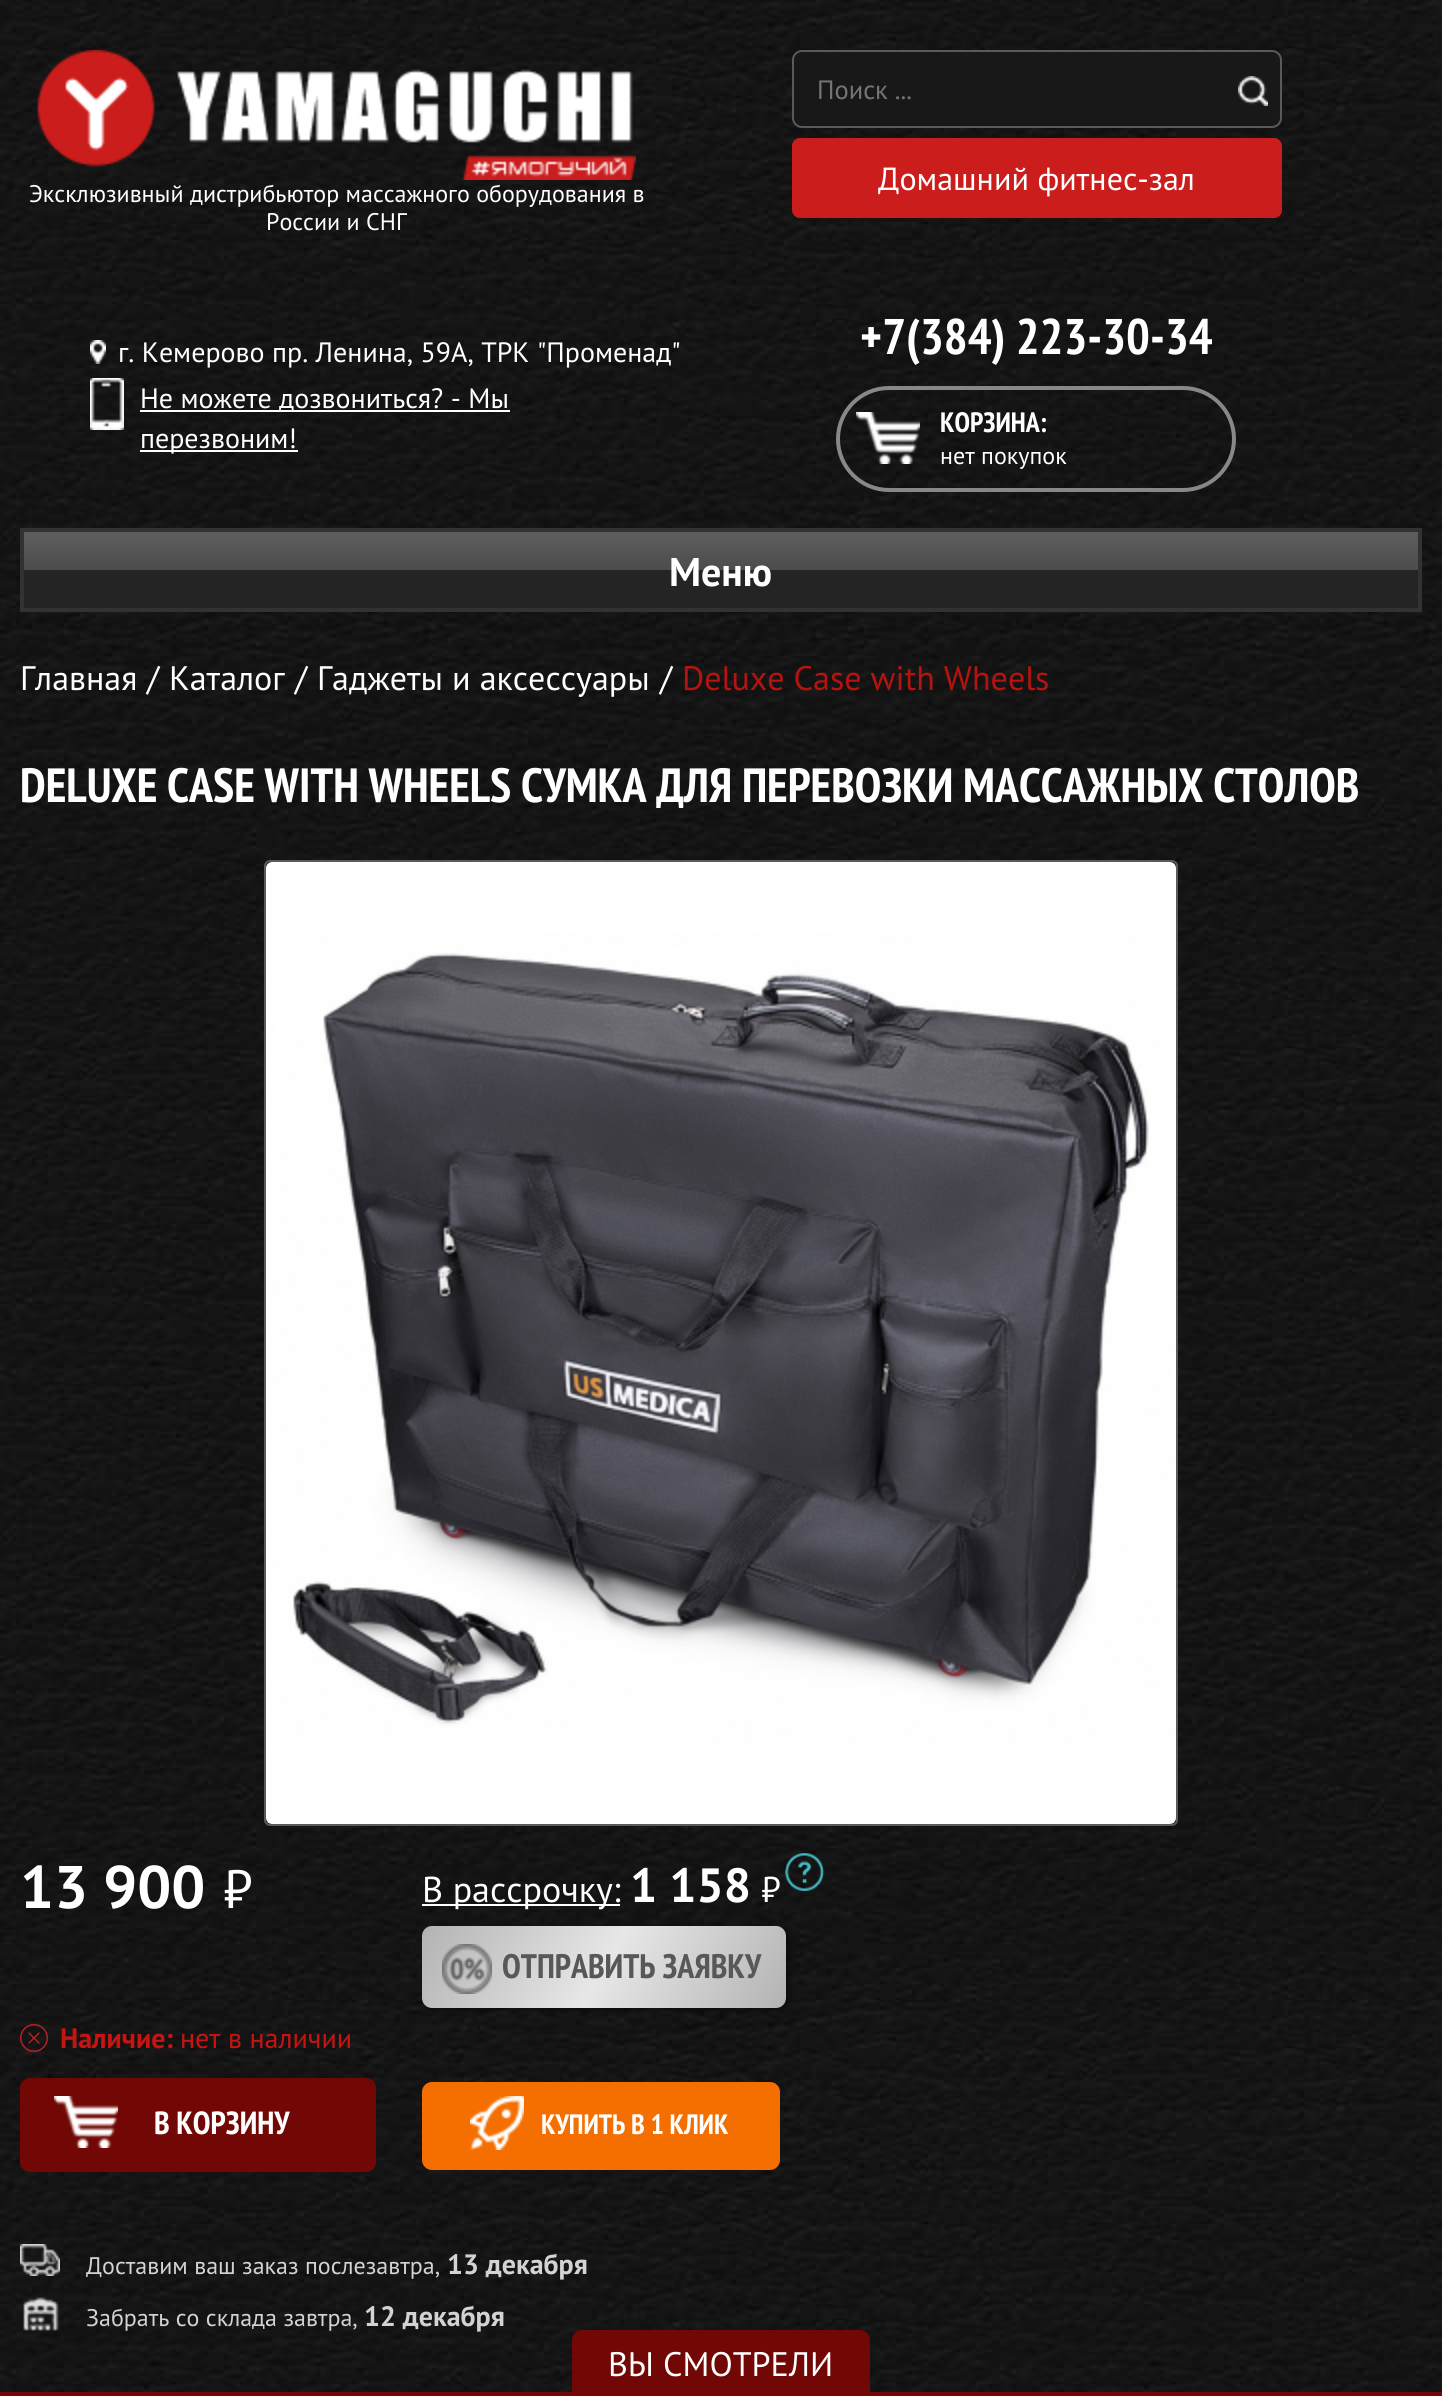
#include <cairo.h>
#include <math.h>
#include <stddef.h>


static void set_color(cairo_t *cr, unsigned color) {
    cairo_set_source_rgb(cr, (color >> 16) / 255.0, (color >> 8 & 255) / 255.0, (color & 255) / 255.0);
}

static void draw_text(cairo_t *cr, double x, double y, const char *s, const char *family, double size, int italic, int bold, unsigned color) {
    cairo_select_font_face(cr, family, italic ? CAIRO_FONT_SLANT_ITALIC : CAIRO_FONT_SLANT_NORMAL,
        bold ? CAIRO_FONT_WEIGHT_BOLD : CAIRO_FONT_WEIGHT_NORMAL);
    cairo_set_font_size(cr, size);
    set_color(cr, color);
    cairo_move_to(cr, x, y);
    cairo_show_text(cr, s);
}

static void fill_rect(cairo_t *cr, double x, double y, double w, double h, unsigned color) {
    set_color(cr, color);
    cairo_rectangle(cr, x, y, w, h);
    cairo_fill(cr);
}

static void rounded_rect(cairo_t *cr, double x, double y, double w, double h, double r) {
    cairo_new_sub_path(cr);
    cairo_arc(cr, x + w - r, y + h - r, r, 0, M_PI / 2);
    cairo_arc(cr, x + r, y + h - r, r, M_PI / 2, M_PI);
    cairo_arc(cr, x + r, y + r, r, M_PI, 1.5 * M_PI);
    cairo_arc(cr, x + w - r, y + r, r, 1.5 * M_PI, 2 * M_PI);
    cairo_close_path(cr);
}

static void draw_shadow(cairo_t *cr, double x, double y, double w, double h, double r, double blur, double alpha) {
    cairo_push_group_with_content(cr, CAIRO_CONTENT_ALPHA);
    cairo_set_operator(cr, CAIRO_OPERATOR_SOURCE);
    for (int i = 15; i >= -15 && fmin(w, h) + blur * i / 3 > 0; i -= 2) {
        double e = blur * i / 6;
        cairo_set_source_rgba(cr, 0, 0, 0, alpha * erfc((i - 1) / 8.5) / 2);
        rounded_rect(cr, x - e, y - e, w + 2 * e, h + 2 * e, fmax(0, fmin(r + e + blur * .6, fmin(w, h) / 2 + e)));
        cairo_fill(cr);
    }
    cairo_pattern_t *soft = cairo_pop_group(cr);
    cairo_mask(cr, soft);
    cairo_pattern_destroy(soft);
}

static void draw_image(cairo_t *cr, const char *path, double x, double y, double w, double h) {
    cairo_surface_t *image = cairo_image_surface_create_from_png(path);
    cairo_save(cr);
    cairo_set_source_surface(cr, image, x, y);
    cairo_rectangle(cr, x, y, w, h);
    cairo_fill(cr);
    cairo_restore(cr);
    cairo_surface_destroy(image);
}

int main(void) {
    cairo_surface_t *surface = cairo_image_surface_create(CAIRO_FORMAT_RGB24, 1442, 2396);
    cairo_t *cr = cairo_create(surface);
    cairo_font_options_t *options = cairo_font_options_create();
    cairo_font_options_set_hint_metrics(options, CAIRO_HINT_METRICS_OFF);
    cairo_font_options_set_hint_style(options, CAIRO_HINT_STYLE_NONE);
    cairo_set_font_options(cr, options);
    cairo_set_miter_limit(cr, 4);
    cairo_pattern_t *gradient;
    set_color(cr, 0xFFFFFF);
    cairo_paint(cr);
    draw_image(cr, "assets/img1.png", 0, 0, 1442, 2392);
    set_color(cr, 0x181818);
    rounded_rect(cr, 793, 51, 488, 76, 9);
    cairo_fill_preserve(cr);
    set_color(cr, 0x5A5A5A);
    cairo_stroke(cr);
    draw_text(cr, 817, 99, "Поиск ...", "PT Sans", 26.5, 0, 0, 0x757575);
    draw_image(cr, "assets/img2.png", 1238, 76, 30, 30);
    set_color(cr, 0xCC1D1D);
    rounded_rect(cr, 794, 140, 486, 76, 6);
    cairo_fill_preserve(cr);
    cairo_set_line_width(cr, 4);
    cairo_stroke(cr);
    draw_text(cr, 878, 190, "Домашний фитнес-зал", "PT Sans", 32, 0, 0, 0xFFFFFF);
    draw_image(cr, "assets/img3.png", 37, 50, 599, 130);
    draw_text(cr, 29, 202, "Эксклюзивный дистрибьютор массажного оборудования в", "PT Sans", 24, 0, 0, 0xFFFFFF);
    draw_text(cr, 266, 230, "России и СНГ", "PT Sans", 24, 0, 0, 0xFFFFFF);
    draw_image(cr, "assets/img4.png", 90, 340, 16, 24);
    draw_text(cr, 118, 362, "г. Кемерово пр. Ленина, 59А, ТРК \"Променад\"", "PT Sans", 28, 0, 0, 0xFFFFFF);
    draw_image(cr, "assets/img5.png", 90, 378, 34, 52);
    fill_rect(cr, 140, 410, 370, 2, 0xFFFFFF);
    draw_text(cr, 140, 408, "Не можете дозвониться? - Мы", "PT Sans", 28, 0, 0, 0xFFFFFF);
    fill_rect(cr, 140, 450, 158, 2, 0xFFFFFF);
    draw_text(cr, 140, 448, "перезвоним!", "PT Sans", 28, 0, 0, 0xFFFFFF);
    draw_text(cr, 860, 354, "+7(384) 223-30-34", "PT Sans Narrow", 50, 0, 1, 0xFFFFFF);
    rounded_rect(cr, 838, 388, 396, 102, 51);
    set_color(cr, 0x888888);
    cairo_stroke(cr);
    draw_image(cr, "assets/img6.png", 856, 412, 64, 52);
    draw_text(cr, 940, 432, "КОРЗИНА:", "PT Sans Narrow", 28, 0, 1, 0xFFFFFF);
    draw_text(cr, 940, 464, "нет покупок", "PT Sans", 24, 0, 0, 0xFFFFFF);
    gradient = cairo_pattern_create_linear(721, 532, 721, 608);
    cairo_pattern_add_color_stop_rgba(gradient, 0, 0.369, 0.369, 0.369, 1);
    cairo_pattern_add_color_stop_rgba(gradient, 0.5, 0.298, 0.298, 0.298, 1);
    cairo_pattern_add_color_stop_rgba(gradient, 0.5, 0.141, 0.141, 0.141, 1);
    cairo_pattern_add_color_stop_rgba(gradient, 1, 0.141, 0.141, 0.141, 1);
    cairo_set_source(cr, gradient);
    cairo_pattern_destroy(gradient);
    cairo_rectangle(cr, 24, 532, 1394, 76);
    cairo_fill(cr);
    cairo_rectangle(cr, 22, 530, 1398, 80);
    set_color(cr, 0x323232);
    cairo_stroke(cr);
    draw_text(cr, 669, 586, "Меню", "PT Sans", 40, 0, 1, 0xFFFFFF);
    draw_text(cr, 20, 690, "Главная", "PT Sans", 34, 0, 0, 0xFFFFFF);
    draw_text(cr, 147, 690, "/", "PT Sans", 34, 0, 0, 0xFFFFFF);
    draw_text(cr, 169, 690, "Каталог", "PT Sans", 34, 0, 0, 0xFFFFFF);
    draw_text(cr, 295, 690, "/", "PT Sans", 34, 0, 0, 0xFFFFFF);
    draw_text(cr, 317, 690, "Гаджеты и аксессуары", "PT Sans", 34, 0, 0, 0xFFFFFF);
    draw_text(cr, 660, 690, "/", "PT Sans", 34, 0, 0, 0xFFFFFF);
    draw_text(cr, 682, 690, "Deluxe Case with Wheels", "PT Sans", 34, 0, 0, 0xB5130F);
    draw_text(cr, 20, 802, "DELUXE CASE WITH WHEELS СУМКА ДЛЯ ПЕРЕВОЗКИ МАССАЖНЫХ СТОЛОВ", "PT Sans Narrow", 48, 0, 1, 0xFFFFFF);
    set_color(cr, 0x181818);
    rounded_rect(cr, 265, 861, 912, 964, 5);
    cairo_fill_preserve(cr);
    set_color(cr, 0x5A5A5A);
    cairo_set_line_width(cr, 2);
    cairo_stroke(cr);
    draw_image(cr, "assets/img7.png", 266, 862, 910, 962);
    draw_text(cr, 20, 1908, "13 900", "PT Sans", 60, 0, 1, 0xFFFFFF);
    draw_text(cr, 223, 1908, "⃏", "PT Sans", 54, 0, 0, 0xFFFFFF);
    fill_rect(cr, 422, 1904, 198, 2, 0xFFFFFF);
    draw_text(cr, 422, 1902, "В рассрочку:", "PT Sans", 36, 0, 0, 0xFFFFFF);
    draw_text(cr, 630, 1902, "1 158", "PT Sans", 48, 0, 1, 0xFFFFFF);
    draw_text(cr, 761, 1902, "⃏", "PT Sans", 36, 0, 0, 0xFFFFFF);
    draw_image(cr, "assets/img8.png", 785, 1853, 39, 38);
    set_color(cr, 0x000000);
    draw_shadow(cr, 426, 1928, 364, 82, 10, 3, 0.5);
    gradient = cairo_pattern_create_linear(450, 1878, 758, 2056);
    cairo_pattern_add_color_stop_rgba(gradient, 0, 0.702, 0.702, 0.702, 1);
    cairo_pattern_add_color_stop_rgba(gradient, 0.5, 0.906, 0.906, 0.906, 1);
    cairo_pattern_add_color_stop_rgba(gradient, 1, 0.702, 0.702, 0.702, 1);
    cairo_set_source(cr, gradient);
    cairo_pattern_destroy(gradient);
    rounded_rect(cr, 422, 1926, 364, 82, 10);
    cairo_fill(cr);
    draw_image(cr, "assets/img9.png", 442, 1944, 50, 50);
    draw_text(cr, 502, 1978, "ОТПРАВИТЬ ЗАЯВКУ", "PT Sans Narrow", 34, 0, 1, 0x585858);
    draw_image(cr, "assets/img10.png", 20, 2024, 28, 28);
    draw_text(cr, 60, 2048, "Наличие:", "PT Sans", 28, 0, 1, 0xC81411);
    draw_text(cr, 180, 2048, "нет в наличии", "PT Sans", 28, 0, 0, 0xC81411);
    set_color(cr, 0x710805);
    rounded_rect(cr, 20, 2078, 356, 94, 10);
    cairo_fill(cr);
    draw_image(cr, "assets/img11.png", 54, 2096, 64, 52);
    draw_text(cr, 154, 2134, "В КОРЗИНУ", "PT Sans Narrow", 32, 0, 1, 0xFFFFFF);
    set_color(cr, 0xF56E00);
    rounded_rect(cr, 422, 2082, 358, 88, 10);
    cairo_fill(cr);
    draw_image(cr, "assets/img12.png", 470, 2096, 54, 54);
    draw_text(cr, 541, 2134, "КУПИТЬ В 1 КЛИК", "PT Sans Narrow", 28, 0, 1, 0xFFFFFF);
    draw_image(cr, "assets/img13.png", 20, 2244, 40, 32);
    draw_text(cr, 86, 2274, "Доставим ваш заказ послезавтра,", "PT Sans", 24, 0, 0, 0xD3D3D3);
    draw_text(cr, 447, 2274, "13 декабря", "PT Sans", 28, 0, 1, 0xD3D3D3);
    draw_image(cr, "assets/img14.png", 23, 2297, 36, 34);
    draw_text(cr, 86, 2326, "Забрать со склада завтра,", "PT Sans", 24, 0, 0, 0xD3D3D3);
    draw_text(cr, 364, 2326, "12 декабря", "PT Sans", 28, 0, 1, 0xD3D3D3);
    fill_rect(cr, 0, 2392, 1442, 4, 0x710805);
    cairo_new_path(cr);
    cairo_move_to(cr, 582, 2330);
    cairo_line_to(cr, 860, 2330);
    cairo_curve_to(cr, 865.5, 2330, 870, 2334.5, 870, 2340);
    cairo_line_to(cr, 870, 2396);
    cairo_line_to(cr, 572, 2396);
    cairo_line_to(cr, 572, 2340);
    cairo_curve_to(cr, 572, 2334.5, 576.5, 2330, 582, 2330);
    cairo_close_path(cr);
    cairo_fill(cr);
    draw_text(cr, 608, 2376, "ВЫ СМОТРЕЛИ", "PT Sans", 34, 0, 0, 0xFFFFFF);
    cairo_surface_write_to_png(surface, "output.png");
    cairo_font_options_destroy(options);
    cairo_destroy(cr);
    cairo_surface_destroy(surface);
    return 0;
}
